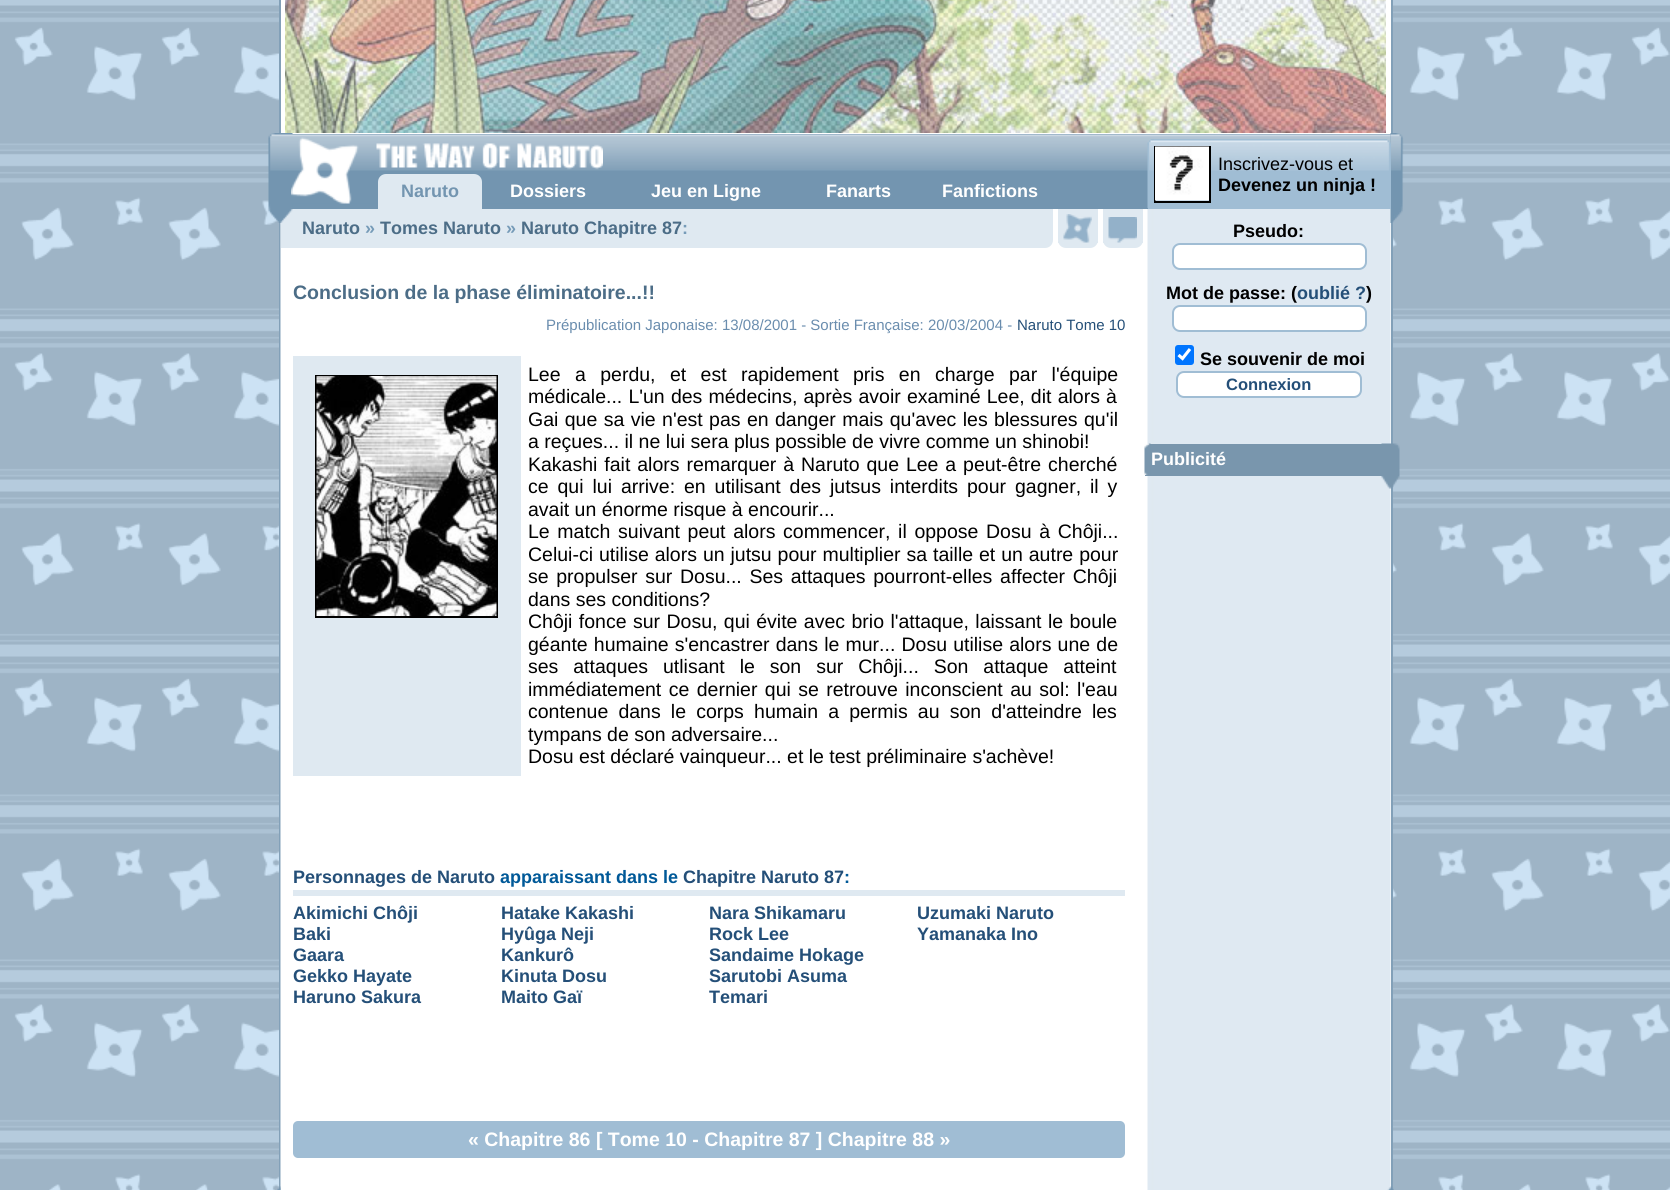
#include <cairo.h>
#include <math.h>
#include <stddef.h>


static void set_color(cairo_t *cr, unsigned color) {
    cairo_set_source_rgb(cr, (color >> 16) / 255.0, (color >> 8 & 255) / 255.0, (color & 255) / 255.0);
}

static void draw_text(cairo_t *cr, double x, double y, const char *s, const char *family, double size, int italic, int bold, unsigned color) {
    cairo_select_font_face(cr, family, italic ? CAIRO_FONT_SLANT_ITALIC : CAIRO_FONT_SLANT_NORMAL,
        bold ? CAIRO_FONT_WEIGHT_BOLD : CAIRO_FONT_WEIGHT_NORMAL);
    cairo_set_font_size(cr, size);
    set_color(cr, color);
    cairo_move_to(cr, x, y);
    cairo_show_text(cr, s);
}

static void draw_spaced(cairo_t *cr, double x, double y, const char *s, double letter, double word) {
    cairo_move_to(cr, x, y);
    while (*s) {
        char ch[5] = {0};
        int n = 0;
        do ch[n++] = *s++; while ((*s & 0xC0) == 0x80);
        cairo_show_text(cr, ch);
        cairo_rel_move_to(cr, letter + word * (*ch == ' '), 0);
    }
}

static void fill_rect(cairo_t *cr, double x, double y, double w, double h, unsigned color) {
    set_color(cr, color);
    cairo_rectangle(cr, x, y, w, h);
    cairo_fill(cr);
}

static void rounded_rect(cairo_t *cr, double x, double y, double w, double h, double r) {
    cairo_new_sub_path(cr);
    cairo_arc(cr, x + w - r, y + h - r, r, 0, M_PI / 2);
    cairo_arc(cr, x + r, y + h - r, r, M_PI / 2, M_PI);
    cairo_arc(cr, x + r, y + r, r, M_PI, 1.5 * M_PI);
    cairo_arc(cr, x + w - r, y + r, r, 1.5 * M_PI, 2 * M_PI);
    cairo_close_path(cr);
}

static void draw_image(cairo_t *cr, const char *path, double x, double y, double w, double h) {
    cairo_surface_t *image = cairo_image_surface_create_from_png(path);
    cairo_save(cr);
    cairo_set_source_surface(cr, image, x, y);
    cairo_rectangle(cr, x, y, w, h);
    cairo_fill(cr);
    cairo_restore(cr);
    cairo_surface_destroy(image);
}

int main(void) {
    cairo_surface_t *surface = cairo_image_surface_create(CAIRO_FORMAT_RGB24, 1670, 1190);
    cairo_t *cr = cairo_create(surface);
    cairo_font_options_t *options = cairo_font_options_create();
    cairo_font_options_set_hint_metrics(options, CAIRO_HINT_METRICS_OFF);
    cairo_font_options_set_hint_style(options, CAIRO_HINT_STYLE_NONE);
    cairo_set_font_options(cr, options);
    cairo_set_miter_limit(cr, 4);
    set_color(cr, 0xFFFFFF);
    cairo_paint(cr);
    draw_image(cr, "assets/img1.png", 0, 0, 1670, 1190);
    fill_rect(cr, 281, 0, 1110, 1190, 0xFFFFFF);
    fill_rect(cr, 1391, 0, 2, 1190, 0x82A0B8);
    fill_rect(cr, 279, 0, 2, 1190, 0x82A0B8);
    draw_image(cr, "assets/img2.png", 285, 0, 1101, 133);
    fill_rect(cr, 281, 134, 1110, 75, 0x7395B0);
    draw_image(cr, "assets/img3.png", 280, 134, 1111, 37);
    draw_image(cr, "assets/img11.png", 280, 209, 1111, 981);
    draw_image(cr, "assets/img4.png", 1390, 133, 14, 90);
    set_color(cr, 0xDFE9F1);
    cairo_new_path(cr);
    cairo_move_to(cr, 281, 209);
    cairo_line_to(cr, 1053, 209);
    cairo_line_to(cr, 1053, 240);
    cairo_curve_to(cr, 1053, 244.5, 1049.5, 248, 1045, 248);
    cairo_line_to(cr, 281, 248);
    cairo_close_path(cr);
    cairo_fill(cr);
    draw_image(cr, "assets/img5.png", 268, 133, 25, 90);
    draw_image(cr, "assets/img6.png", 291, 137, 312, 67);
    cairo_new_path(cr);
    cairo_move_to(cr, 386, 174);
    cairo_line_to(cr, 474, 174);
    cairo_curve_to(cr, 478.5, 174, 482, 177.5, 482, 182);
    cairo_line_to(cr, 482, 209);
    cairo_line_to(cr, 378, 209);
    cairo_line_to(cr, 378, 182);
    cairo_curve_to(cr, 378, 177.5, 381.5, 174, 386, 174);
    cairo_close_path(cr);
    cairo_fill(cr);
    draw_text(cr, 401, 197, "Naruto", "Liberation Sans", 18, 0, 1, 0x7395B0);
    draw_text(cr, 510, 197, "Dossiers", "Liberation Sans", 18, 0, 1, 0xFFFFFF);
    draw_text(cr, 651, 197, "Jeu en Ligne", "Liberation Sans", 18, 0, 1, 0xFFFFFF);
    draw_text(cr, 826, 197, "Fanarts", "Liberation Sans", 18, 0, 1, 0xFFFFFF);
    draw_text(cr, 942, 197, "Fanfictions", "Liberation Sans", 18, 0, 1, 0xFFFFFF);
    set_color(cr, 0xA0BDD4);
    cairo_new_path(cr);
    cairo_move_to(cr, 1153, 140);
    cairo_line_to(cr, 1386, 140);
    cairo_curve_to(cr, 1389, 140, 1391, 142, 1391, 145);
    cairo_line_to(cr, 1391, 209);
    cairo_line_to(cr, 1148, 209);
    cairo_line_to(cr, 1148, 145);
    cairo_curve_to(cr, 1148, 142, 1150, 140, 1153, 140);
    cairo_close_path(cr);
    cairo_fill(cr);
    draw_image(cr, "assets/img7.png", 1147, 139, 243, 69);
    cairo_rectangle(cr, 1155, 147, 55, 55);
    set_color(cr, 0x000000);
    cairo_stroke(cr);
    draw_image(cr, "assets/img8.png", 1155, 146, 54, 55);
    draw_text(cr, 1218, 170, "Inscrivez-vous et", "Liberation Sans", 18, 0, 0, 0x000000);
    draw_text(cr, 1218, 191, "Devenez un ninja !", "Liberation Sans", 18, 0, 1, 0x000000);
    set_color(cr, 0xDFE9F1);
    cairo_new_path(cr);
    cairo_move_to(cr, 1058, 209);
    cairo_line_to(cr, 1098, 209);
    cairo_line_to(cr, 1098, 240);
    cairo_curve_to(cr, 1098, 244.5, 1094.5, 248, 1090, 248);
    cairo_line_to(cr, 1066, 248);
    cairo_curve_to(cr, 1061.5, 248, 1058, 244.5, 1058, 240);
    cairo_close_path(cr);
    cairo_fill(cr);
    fill_rect(cr, 1058, 241, 40, 2, 0xDFE9F1);
    draw_image(cr, "assets/img9.png", 1063, 214, 29, 29);
    cairo_new_path(cr);
    cairo_move_to(cr, 1103, 209);
    cairo_line_to(cr, 1143, 209);
    cairo_line_to(cr, 1143, 240);
    cairo_curve_to(cr, 1143, 244.5, 1139.5, 248, 1135, 248);
    cairo_line_to(cr, 1111, 248);
    cairo_curve_to(cr, 1106.5, 248, 1103, 244.5, 1103, 240);
    cairo_close_path(cr);
    cairo_fill(cr);
    fill_rect(cr, 1103, 241, 40, 2, 0xDFE9F1);
    draw_image(cr, "assets/img10.png", 1108, 217, 29, 26);
    draw_text(cr, 302, 234, "Naruto", "Liberation Sans", 18, 0, 1, 0x4C6D87);
    draw_text(cr, 365, 234, "»", "Liberation Sans", 18, 0, 1, 0x769BB8);
    draw_text(cr, 380, 234, "Tomes Naruto", "Liberation Sans", 18, 0, 1, 0x4C6D87);
    draw_text(cr, 506, 234, "»", "Liberation Sans", 18, 0, 1, 0x769BB8);
    draw_text(cr, 521, 234, "Naruto Chapitre 87", "Liberation Sans", 18, 0, 1, 0x4C6D87);
    draw_text(cr, 682, 234, ":", "Liberation Sans", 18, 0, 1, 0x769BB8);
    draw_text(cr, 293, 299, "Conclusion de la phase éliminatoire...!!", "Liberation Sans", 19.5, 0, 1, 0x4C6D87);
    draw_text(cr, 546, 330, "Prépublication Japonaise: 13/08/2001 - Sortie Française: 20/03/2004 -", "Liberation Sans", 15, 0, 0, 0x6A8DAE);
    draw_text(cr, 1017, 330, "Naruto Tome 10", "Liberation Sans", 15, 0, 0, 0x244F78);
    fill_rect(cr, 293, 356, 228, 420, 0xDFE9F1);
    cairo_rectangle(cr, 316, 376, 181, 241);
    set_color(cr, 0x000000);
    cairo_stroke(cr);
    draw_image(cr, "assets/img12.png", 316, 376, 181, 240);
    cairo_set_font_size(cr, 19.5);
    draw_spaced(cr, 528, 381, "Lee a perdu, et est rapidement pris en charge par l'équipe", 0, 9);
    draw_spaced(cr, 528, 403, "médicale... L'un des médecins, après avoir examiné Lee, dit alors à", 0, 0.75);
    draw_spaced(cr, 528, 426, "Gai que sa vie n'est pas en danger mais qu'avec les blessures qu'il", 0, 1);
    draw_text(cr, 528, 448, "a reçues... il ne lui sera plus possible de vivre comme un shinobi!", "Liberation Sans", 19.5, 0, 0, 0x000000);
    draw_spaced(cr, 528, 471, "Kakashi fait alors remarquer à Naruto que Lee a peut-être cherché", 0, 1.5);
    draw_spaced(cr, 528, 493, "ce qui lui arrive: en utilisant des jutsus interdits pour gagner, il y", 0, 3.5);
    draw_text(cr, 528, 516, "avait un énorme risque à encourir...", "Liberation Sans", 19.5, 0, 0, 0x000000);
    draw_spaced(cr, 528, 538, "Le match suivant peut alors commencer, il oppose Dosu à Chôji...", 0, 2.25);
    draw_spaced(cr, 528, 561, "Celui-ci utilise alors un jutsu pour multiplier sa taille et un autre pour", 0, 0.5);
    draw_spaced(cr, 528, 583, "se propulser sur Dosu... Ses attaques pourront-elles affecter Chôji", 0, 2.25);
    draw_text(cr, 528, 606, "dans ses conditions?", "Liberation Sans", 19.5, 0, 0, 0x000000);
    draw_spaced(cr, 528, 628, "Chôji fonce sur Dosu, qui évite avec brio l'attaque, laissant le boule", 0, 1);
    draw_spaced(cr, 528, 651, "géante humaine s'encastrer dans le mur... Dosu utilise alors une de", 0, 0.75);
    draw_spaced(cr, 528, 673, "ses attaques utlisant le son sur Chôji... Son attaque atteint", 0, 9.5);
    draw_spaced(cr, 528, 696, "immédiatement ce dernier qui se retrouve inconscient au sol: l'eau", 0, 2);
    draw_spaced(cr, 528, 718, "contenue dans le corps humain a permis au son d'atteindre les", 0, 4.75);
    draw_text(cr, 528, 741, "tympans de son adversaire...", "Liberation Sans", 19.5, 0, 0, 0x000000);
    draw_text(cr, 528, 763, "Dosu est déclaré vainqueur... et le test préliminaire s'achève!", "Liberation Sans", 19.5, 0, 0, 0x000000);
    fill_rect(cr, 293, 890, 832, 6, 0xDFE9F1);
    draw_text(cr, 293, 883, "Personnages de Naruto", "Liberation Sans", 18, 0, 1, 0x244F78);
    draw_text(cr, 500, 883, "apparaissant dans le", "Liberation Sans", 18, 0, 1, 0x005998);
    draw_text(cr, 683, 883, "Chapitre Naruto 87", "Liberation Sans", 18, 0, 1, 0x244F78);
    draw_text(cr, 844, 883, ":", "Liberation Sans", 18, 0, 1, 0x005998);
    draw_text(cr, 293, 919, "Akimichi Chôji", "Liberation Sans", 18, 0, 1, 0x244F78);
    draw_text(cr, 293, 940, "Baki", "Liberation Sans", 18, 0, 1, 0x244F78);
    draw_text(cr, 293, 961, "Gaara", "Liberation Sans", 18, 0, 1, 0x244F78);
    draw_text(cr, 293, 982, "Gekko Hayate", "Liberation Sans", 18, 0, 1, 0x244F78);
    draw_text(cr, 293, 1003, "Haruno Sakura", "Liberation Sans", 18, 0, 1, 0x244F78);
    draw_text(cr, 501, 919, "Hatake Kakashi", "Liberation Sans", 18, 0, 1, 0x244F78);
    draw_text(cr, 501, 940, "Hyûga Neji", "Liberation Sans", 18, 0, 1, 0x244F78);
    draw_text(cr, 501, 961, "Kankurô", "Liberation Sans", 18, 0, 1, 0x244F78);
    draw_text(cr, 501, 982, "Kinuta Dosu", "Liberation Sans", 18, 0, 1, 0x244F78);
    draw_text(cr, 501, 1003, "Maito Gaï", "Liberation Sans", 18, 0, 1, 0x244F78);
    draw_text(cr, 709, 919, "Nara Shikamaru", "Liberation Sans", 18, 0, 1, 0x244F78);
    draw_text(cr, 709, 940, "Rock Lee", "Liberation Sans", 18, 0, 1, 0x244F78);
    draw_text(cr, 709, 961, "Sandaime Hokage", "Liberation Sans", 18, 0, 1, 0x244F78);
    draw_text(cr, 709, 982, "Sarutobi Asuma", "Liberation Sans", 18, 0, 1, 0x244F78);
    draw_text(cr, 709, 1003, "Temari", "Liberation Sans", 18, 0, 1, 0x244F78);
    draw_text(cr, 917, 919, "Uzumaki Naruto", "Liberation Sans", 18, 0, 1, 0x244F78);
    draw_text(cr, 917, 940, "Yamanaka Ino", "Liberation Sans", 18, 0, 1, 0x244F78);
    set_color(cr, 0xA0BDD4);
    rounded_rect(cr, 293, 1121, 832, 37, 5);
    cairo_fill(cr);
    draw_text(cr, 468, 1146, "« Chapitre 86 [ Tome 10 - Chapitre 87 ] Chapitre 88 »", "Liberation Sans", 19.5, 0, 1, 0xFFFFFF);
    draw_text(cr, 1233, 237, "Pseudo:", "Liberation Sans", 18, 0, 1, 0x000000);
    set_color(cr, 0xFFFFFF);
    rounded_rect(cr, 1173, 244, 193, 25, 7);
    cairo_fill_preserve(cr);
    set_color(cr, 0xA0BDD4);
    cairo_stroke(cr);
    draw_text(cr, 1166, 299, "Mot de passe: (", "Liberation Sans", 18, 0, 1, 0x000000);
    draw_text(cr, 1297, 299, "oublié ?", "Liberation Sans", 18, 0, 1, 0x244F78);
    draw_text(cr, 1366, 299, ")", "Liberation Sans", 18, 0, 1, 0x000000);
    set_color(cr, 0xFFFFFF);
    rounded_rect(cr, 1173, 306, 193, 25, 7);
    cairo_fill_preserve(cr);
    set_color(cr, 0xA0BDD4);
    cairo_stroke(cr);
    set_color(cr, 0x0075FF);
    rounded_rect(cr, 1175, 345, 19, 20, 3);
    cairo_fill(cr);
    cairo_new_path(cr);
    cairo_move_to(cr, 1178.5, 355);
    cairo_line_to(cr, 1182.5, 358.5);
    cairo_line_to(cr, 1190, 349);
    set_color(cr, 0xFFFFFF);
    cairo_set_line_width(cr, 3.1);
    cairo_stroke(cr);
    draw_text(cr, 1200, 365, "Se souvenir de moi", "Liberation Sans", 18, 0, 1, 0x000000);
    set_color(cr, 0xFFFFFF);
    rounded_rect(cr, 1177, 372, 184, 25, 7);
    cairo_fill_preserve(cr);
    set_color(cr, 0xA0BDD4);
    cairo_set_line_width(cr, 2);
    cairo_stroke(cr);
    draw_text(cr, 1226, 390, "Connexion", "Liberation Sans", 16.5, 0, 1, 0x244F78);
    draw_image(cr, "assets/img13.png", 1381, 443, 19, 46);
    fill_rect(cr, 1145, 444, 237, 32, 0x7996AD);
    draw_image(cr, "assets/img14.png", 1144, 443, 7, 32);
    draw_text(cr, 1151, 465, "Publicité", "Liberation Sans", 18, 0, 1, 0xFFFFFF);
    draw_image(cr, "assets/img15.png", 277, 1186, 4, 4);
    draw_image(cr, "assets/img16.png", 1387, 1186, 7, 4);
    cairo_surface_write_to_png(surface, "output.png");
    cairo_font_options_destroy(options);
    cairo_destroy(cr);
    cairo_surface_destroy(surface);
    return 0;
}
